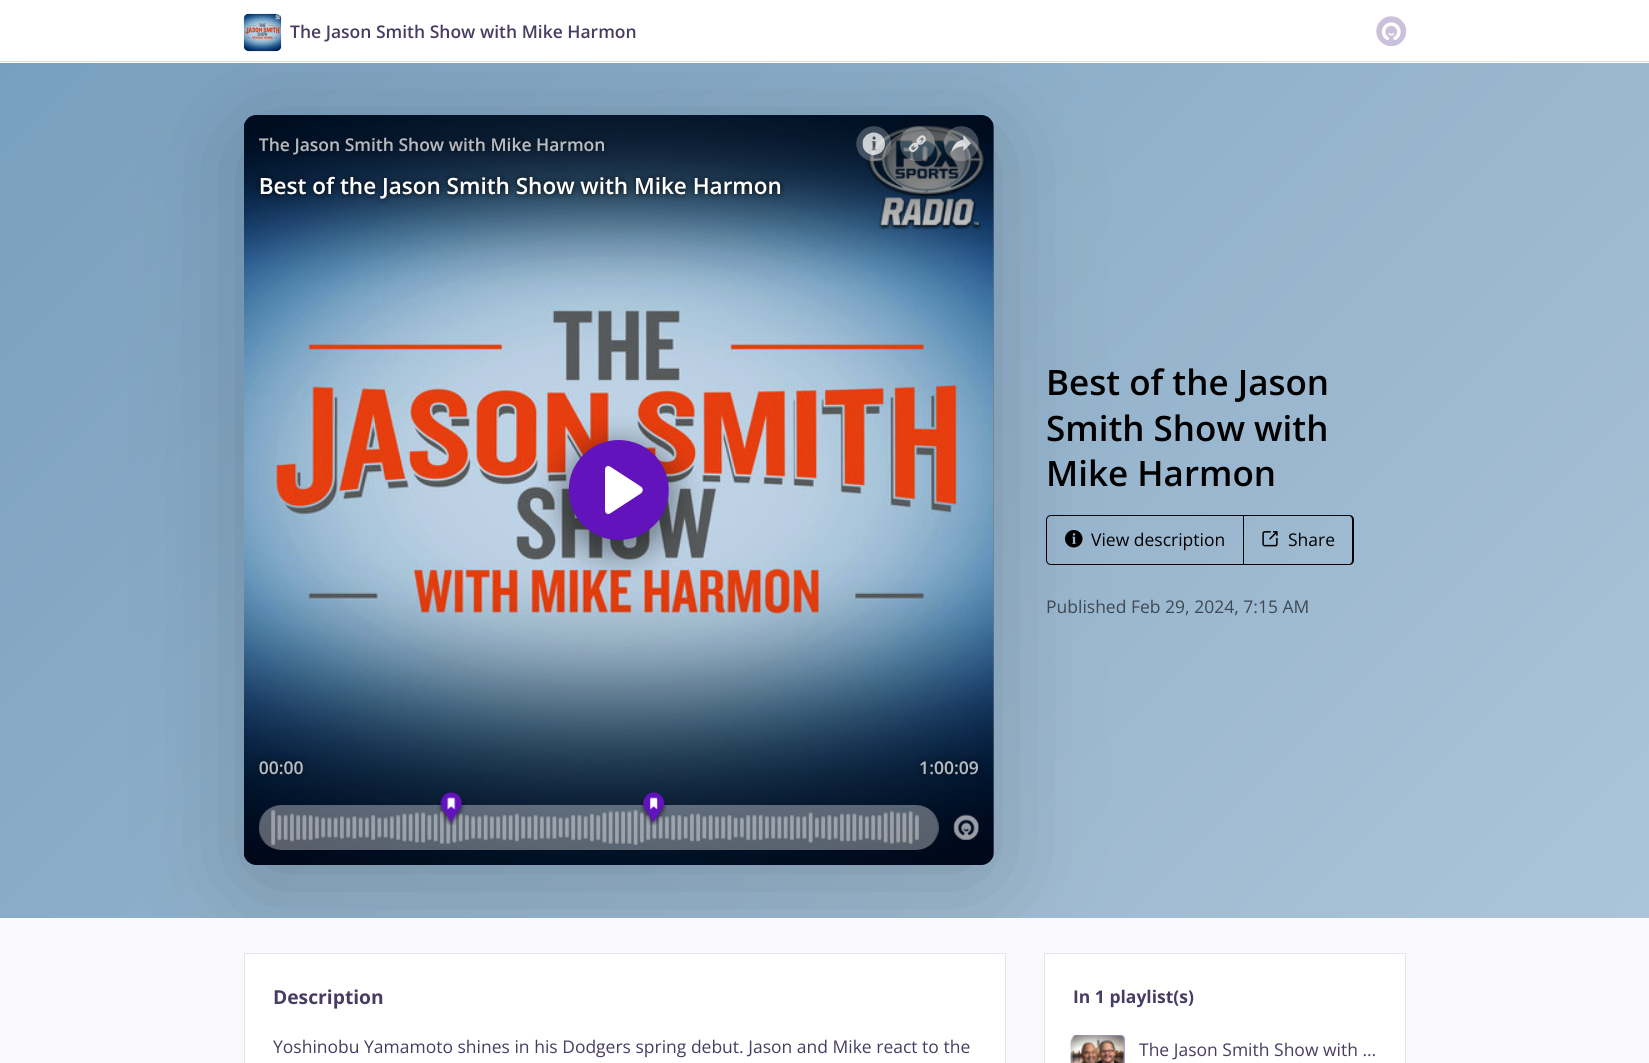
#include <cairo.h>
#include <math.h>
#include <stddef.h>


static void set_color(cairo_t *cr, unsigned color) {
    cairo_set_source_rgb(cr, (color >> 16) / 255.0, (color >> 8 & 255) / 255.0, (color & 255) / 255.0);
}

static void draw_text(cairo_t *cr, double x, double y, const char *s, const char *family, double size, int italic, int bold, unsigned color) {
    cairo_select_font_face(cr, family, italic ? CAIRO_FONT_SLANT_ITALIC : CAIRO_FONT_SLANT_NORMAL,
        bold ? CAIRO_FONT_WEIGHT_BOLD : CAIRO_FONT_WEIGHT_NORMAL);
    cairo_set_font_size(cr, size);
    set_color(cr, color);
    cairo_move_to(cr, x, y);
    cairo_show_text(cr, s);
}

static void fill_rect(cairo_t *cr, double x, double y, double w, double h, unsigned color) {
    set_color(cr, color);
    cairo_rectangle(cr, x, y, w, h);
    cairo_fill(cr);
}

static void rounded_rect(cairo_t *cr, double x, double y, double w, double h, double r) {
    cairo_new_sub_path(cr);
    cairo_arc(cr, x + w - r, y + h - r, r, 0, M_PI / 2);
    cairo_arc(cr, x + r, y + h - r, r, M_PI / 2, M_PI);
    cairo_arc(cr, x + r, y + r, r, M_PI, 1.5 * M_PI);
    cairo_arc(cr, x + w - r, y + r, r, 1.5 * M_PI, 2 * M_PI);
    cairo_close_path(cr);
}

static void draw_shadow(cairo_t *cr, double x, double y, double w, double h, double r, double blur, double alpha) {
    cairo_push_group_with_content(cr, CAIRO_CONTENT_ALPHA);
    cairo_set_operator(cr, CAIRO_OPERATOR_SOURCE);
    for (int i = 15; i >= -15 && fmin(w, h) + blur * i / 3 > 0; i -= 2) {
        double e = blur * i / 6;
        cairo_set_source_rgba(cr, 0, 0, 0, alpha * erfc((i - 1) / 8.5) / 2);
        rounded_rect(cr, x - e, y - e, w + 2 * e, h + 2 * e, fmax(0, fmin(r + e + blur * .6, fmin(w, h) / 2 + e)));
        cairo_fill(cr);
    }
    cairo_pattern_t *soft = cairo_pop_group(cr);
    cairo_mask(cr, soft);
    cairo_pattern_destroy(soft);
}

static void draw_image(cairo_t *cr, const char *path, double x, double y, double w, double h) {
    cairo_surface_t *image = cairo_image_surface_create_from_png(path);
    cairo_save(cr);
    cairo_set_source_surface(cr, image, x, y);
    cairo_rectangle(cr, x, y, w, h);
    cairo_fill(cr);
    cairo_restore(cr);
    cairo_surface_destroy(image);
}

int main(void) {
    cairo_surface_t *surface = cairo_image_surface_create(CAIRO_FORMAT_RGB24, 1649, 1063);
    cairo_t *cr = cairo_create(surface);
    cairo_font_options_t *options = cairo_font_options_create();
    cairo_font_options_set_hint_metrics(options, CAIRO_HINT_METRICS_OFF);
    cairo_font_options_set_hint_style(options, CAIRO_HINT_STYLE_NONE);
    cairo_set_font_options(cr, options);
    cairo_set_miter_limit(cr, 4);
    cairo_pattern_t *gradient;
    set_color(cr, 0xF9F8FB);
    cairo_paint(cr);
    fill_rect(cr, 0, 0, 1649, 63, 0xFFFFFF);
    fill_rect(cr, 0, 61, 1649, 1, 0xDDDDDD);
    draw_image(cr, "assets/img1.png", 243, 13, 39, 39);
    draw_text(cr, 290, 38, "The Jason Smith Show with Mike Harmon", "Open Sans SemiBold", 17.5, 0, 0, 0x483C63);
    draw_image(cr, "assets/img2.png", 1376, 16, 30, 30);
    gradient = cairo_pattern_create_linear(199, -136, 1451, 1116);
    cairo_pattern_add_color_stop_rgba(gradient, 0, 0.471, 0.624, 0.745, 1);
    cairo_pattern_add_color_stop_rgba(gradient, 1, 0.675, 0.769, 0.847, 1);
    cairo_set_source(cr, gradient);
    cairo_pattern_destroy(gradient);
    cairo_rectangle(cr, 0, 63, 1649, 855);
    cairo_fill(cr);
    cairo_new_path(cr);
    cairo_move_to(cr, 1051, 515.5);
    cairo_line_to(cr, 1243.5, 515.5);
    cairo_line_to(cr, 1243.5, 564.5);
    cairo_line_to(cr, 1051, 564.5);
    cairo_curve_to(cr, 1048.5, 564.5, 1046.5, 562.5, 1046.5, 560);
    cairo_line_to(cr, 1046.5, 520);
    cairo_curve_to(cr, 1046.5, 517.5, 1048.5, 515.5, 1051, 515.5);
    cairo_close_path(cr);
    set_color(cr, 0x000000);
    cairo_set_line_width(cr, 1);
    cairo_stroke(cr);
    set_color(cr, 0xFFFFFF);
    cairo_rectangle(cr, 244.5, 953.5, 761, 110);
    cairo_fill_preserve(cr);
    set_color(cr, 0xE6E2EE);
    cairo_stroke(cr);
    set_color(cr, 0xFFFFFF);
    cairo_rectangle(cr, 1044.5, 953.5, 361, 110);
    cairo_fill_preserve(cr);
    set_color(cr, 0xE6E2EE);
    cairo_stroke(cr);
    cairo_save(cr);
    cairo_rectangle(cr, 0, 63, 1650, 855);
    cairo_clip(cr);
    set_color(cr, 0x000000);
    draw_shadow(cr, 244, 133, 750, 750, 13, 52.5, 0.2);
    cairo_restore(cr);
    cairo_set_source_rgba(cr, 0, 0, 0, 0.2);
    rounded_rect(cr, 244, 115, 750, 750, 13);
    cairo_fill(cr);
    draw_image(cr, "assets/img3.png", 244, 115, 750, 750);
    draw_text(cr, 1046, 395, "Best of the Jason", "Open Sans SemiBold", 35, 0, 0, 0x000000);
    draw_text(cr, 1046, 441, "Smith Show with", "Open Sans SemiBold", 35, 0, 0, 0x000000);
    draw_text(cr, 1046, 486, "Mike Harmon", "Open Sans SemiBold", 35, 0, 0, 0x000000);
    draw_image(cr, "assets/img4.png", 1065, 530, 18, 18);
    draw_text(cr, 1091, 546, "View description", "Open Sans", 17.5, 0, 0, 0x000000);
    cairo_set_fill_rule(cr, CAIRO_FILL_RULE_EVEN_ODD);
    cairo_new_path(cr);
    cairo_move_to(cr, 1244, 515);
    cairo_line_to(cr, 1349, 515);
    cairo_curve_to(cr, 1352, 515, 1354, 517, 1354, 520);
    cairo_line_to(cr, 1354, 560);
    cairo_curve_to(cr, 1354, 563, 1352, 565, 1349, 565);
    cairo_line_to(cr, 1244, 565);
    cairo_close_path(cr);
    cairo_move_to(cr, 1244, 516);
    cairo_line_to(cr, 1349, 516);
    cairo_curve_to(cr, 1351, 516, 1352, 518, 1352, 520);
    cairo_line_to(cr, 1352, 560);
    cairo_curve_to(cr, 1352, 562, 1351, 564, 1349, 564);
    cairo_line_to(cr, 1244, 564);
    cairo_close_path(cr);
    cairo_fill(cr);
    draw_image(cr, "assets/img5.png", 1262, 531, 16, 16);
    draw_text(cr, 1288, 546, "Share", "Open Sans", 17.5, 0, 0, 0x000000);
    draw_text(cr, 1046, 613, "Published", "Open Sans", 17.5, 0, 0, 0x3D4852);
    draw_text(cr, 1131, 613, "Feb 29, 2024, 7:15 AM", "Open Sans", 17.5, 0, 0, 0x3D4852);
    draw_text(cr, 273, 1004, "Description", "Open Sans", 19.25, 0, 1, 0x483C63);
    draw_text(cr, 273, 1053, "Yoshinobu Yamamoto shines in his Dodgers spring debut. Jason and Mike react to the", "Open Sans", 17.5, 0, 0, 0x483C63);
    draw_text(cr, 1073, 1003, "In 1 playlist(s)", "Open Sans", 17.5, 0, 1, 0x483C63);
    set_color(cr, 0xEFECF4);
    rounded_rect(cr, 1070, 1040, 41, 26, 3);
    cairo_fill(cr);
    draw_image(cr, "assets/img8.png", 1070, 1040, 3, 23);
    cairo_set_source_rgba(cr, 0.686, 0.631, 0.792, 0.5);
    rounded_rect(cr, 1071, 1038, 47, 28, 3);
    cairo_fill(cr);
    draw_image(cr, "assets/img7.png", 1071, 1038, 3, 25);
    set_color(cr, 0xAFA1CA);
    rounded_rect(cr, 1073, 1035, 52, 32, 4);
    cairo_fill(cr);
    draw_image(cr, "assets/img6.png", 1072, 1034, 52, 29);
    draw_text(cr, 1139, 1056, "The Jason Smith Show with …", "Open Sans", 17.5, 0, 0, 0x483C63);
    cairo_surface_write_to_png(surface, "output.png");
    cairo_font_options_destroy(options);
    cairo_destroy(cr);
    cairo_surface_destroy(surface);
    return 0;
}
